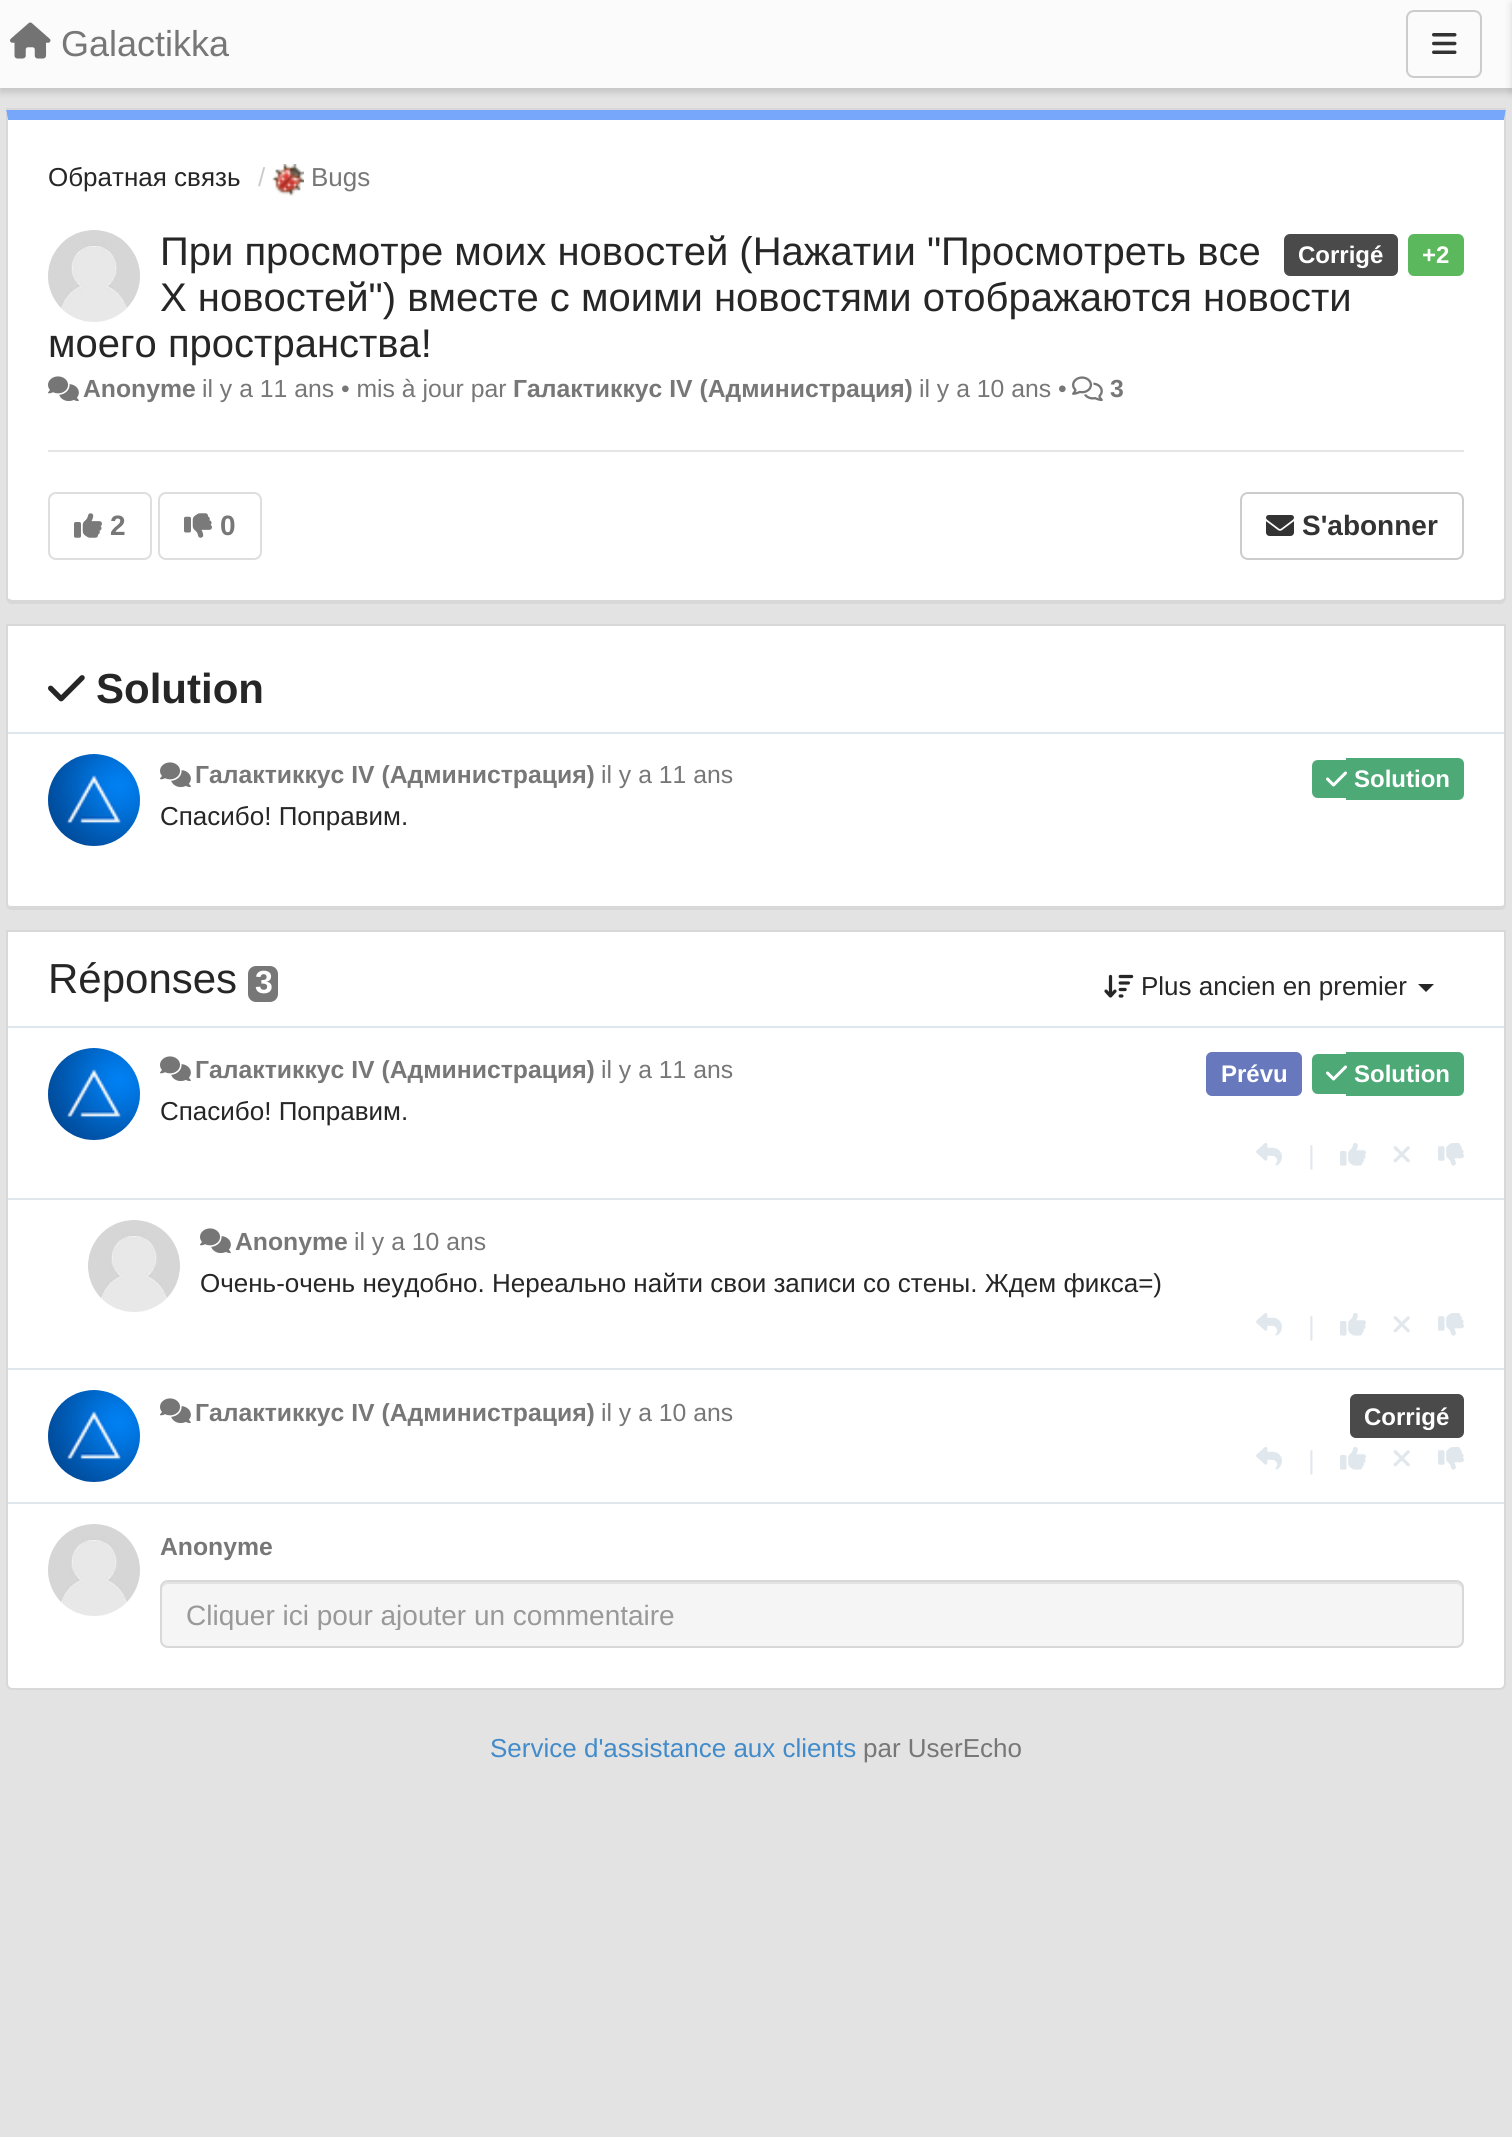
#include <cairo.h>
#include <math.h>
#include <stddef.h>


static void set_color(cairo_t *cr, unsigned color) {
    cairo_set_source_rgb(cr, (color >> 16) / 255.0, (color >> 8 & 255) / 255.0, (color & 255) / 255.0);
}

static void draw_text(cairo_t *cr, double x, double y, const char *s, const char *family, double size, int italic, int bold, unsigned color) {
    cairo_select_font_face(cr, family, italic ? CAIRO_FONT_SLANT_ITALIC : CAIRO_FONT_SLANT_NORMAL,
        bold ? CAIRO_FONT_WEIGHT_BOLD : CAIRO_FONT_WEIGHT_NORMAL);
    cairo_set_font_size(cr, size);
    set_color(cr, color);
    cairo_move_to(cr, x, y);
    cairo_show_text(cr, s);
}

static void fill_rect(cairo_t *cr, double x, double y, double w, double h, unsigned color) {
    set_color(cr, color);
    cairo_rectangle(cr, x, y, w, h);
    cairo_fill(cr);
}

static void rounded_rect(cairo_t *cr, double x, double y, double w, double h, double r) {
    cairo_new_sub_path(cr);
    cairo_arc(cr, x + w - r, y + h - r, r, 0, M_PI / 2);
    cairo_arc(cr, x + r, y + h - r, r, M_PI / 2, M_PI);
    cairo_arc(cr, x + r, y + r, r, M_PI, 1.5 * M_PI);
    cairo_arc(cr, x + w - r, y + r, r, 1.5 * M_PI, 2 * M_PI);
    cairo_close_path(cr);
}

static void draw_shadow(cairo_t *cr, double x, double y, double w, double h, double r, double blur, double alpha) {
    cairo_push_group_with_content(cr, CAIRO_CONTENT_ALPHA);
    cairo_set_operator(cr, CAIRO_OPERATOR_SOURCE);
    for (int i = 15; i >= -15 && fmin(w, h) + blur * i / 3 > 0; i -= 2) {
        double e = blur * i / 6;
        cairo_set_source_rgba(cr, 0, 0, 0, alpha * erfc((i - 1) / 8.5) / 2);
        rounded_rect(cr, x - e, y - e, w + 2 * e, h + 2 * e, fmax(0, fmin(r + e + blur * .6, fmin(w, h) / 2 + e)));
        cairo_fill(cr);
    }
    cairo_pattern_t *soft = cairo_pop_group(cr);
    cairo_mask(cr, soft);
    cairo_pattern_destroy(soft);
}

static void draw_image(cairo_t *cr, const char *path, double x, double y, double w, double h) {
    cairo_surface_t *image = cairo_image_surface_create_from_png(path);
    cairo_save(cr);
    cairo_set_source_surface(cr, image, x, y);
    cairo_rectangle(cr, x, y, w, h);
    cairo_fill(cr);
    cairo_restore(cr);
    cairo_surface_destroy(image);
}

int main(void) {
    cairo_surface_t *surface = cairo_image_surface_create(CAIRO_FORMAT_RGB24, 1512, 2137);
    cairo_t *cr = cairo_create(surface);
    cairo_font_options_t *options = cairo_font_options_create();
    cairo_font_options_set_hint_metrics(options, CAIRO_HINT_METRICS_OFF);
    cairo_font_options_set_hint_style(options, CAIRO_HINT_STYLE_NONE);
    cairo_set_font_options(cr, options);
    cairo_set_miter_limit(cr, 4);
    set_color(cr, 0xE3E3E3);
    cairo_paint(cr);
    set_color(cr, 0x000000);
    draw_shadow(cr, 0, 4, 1512, 88, 0, 4, 0.15);
    fill_rect(cr, 0, 0, 1512, 88, 0xFBFBFB);
    draw_image(cr, "assets/img1.png", 10, 22, 41, 37);
    draw_text(cr, 61, 56, "Galactikka", "Liberation Sans", 36, 0, 0, 0x777777);
    rounded_rect(cr, 1407, 11, 74, 66, 7);
    set_color(cr, 0xCCCCCC);
    cairo_stroke(cr);
    draw_image(cr, "assets/img2.png", 1432, 33, 25, 21);
    set_color(cr, 0x000000);
    draw_shadow(cr, 1512, 4, 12, 88, 0, 4, 0.15);
    fill_rect(cr, 6, 108, 1500, 2, 0xD8D8D8);
    set_color(cr, 0xFFFFFF);
    cairo_new_path(cr);
    cairo_move_to(cr, 8, 120);
    cairo_line_to(cr, 1504, 120);
    cairo_line_to(cr, 1504, 598);
    cairo_curve_to(cr, 1504, 599, 1502, 600, 1500, 600);
    cairo_line_to(cr, 12, 600);
    cairo_curve_to(cr, 10, 600, 8, 599, 8, 598);
    cairo_close_path(cr);
    cairo_fill(cr);
    set_color(cr, 0x76A7FA);
    cairo_new_path(cr);
    cairo_move_to(cr, 6, 110);
    cairo_line_to(cr, 8, 120);
    cairo_line_to(cr, 1504, 120);
    cairo_line_to(cr, 1506, 110);
    cairo_close_path(cr);
    cairo_fill(cr);
    set_color(cr, 0xD8D8D8);
    cairo_new_path(cr);
    cairo_move_to(cr, 1506, 110);
    cairo_line_to(cr, 1504, 120);
    cairo_line_to(cr, 1504, 598);
    cairo_line_to(cr, 1503, 599);
    cairo_line_to(cr, 1505, 601);
    cairo_line_to(cr, 1506, 598);
    cairo_close_path(cr);
    cairo_fill(cr);
    cairo_new_path(cr);
    cairo_move_to(cr, 12, 604);
    cairo_line_to(cr, 1500, 604);
    cairo_curve_to(cr, 1502, 604, 1504, 603, 1505, 601);
    cairo_line_to(cr, 1503, 599);
    cairo_line_to(cr, 1500, 600);
    cairo_line_to(cr, 12, 600);
    cairo_line_to(cr, 9, 599);
    cairo_line_to(cr, 7, 601);
    cairo_curve_to(cr, 8, 603, 10, 604, 12, 604);
    cairo_close_path(cr);
    cairo_fill(cr);
    cairo_new_path(cr);
    cairo_move_to(cr, 8, 120);
    cairo_line_to(cr, 6, 110);
    cairo_line_to(cr, 6, 598);
    cairo_line_to(cr, 7, 601);
    cairo_line_to(cr, 9, 599);
    cairo_line_to(cr, 8, 598);
    cairo_close_path(cr);
    cairo_fill(cr);
    draw_text(cr, 48, 186, "Обратная связь", "Liberation Sans", 26, 0, 0, 0x262626);
    draw_text(cr, 258, 186, "/", "Liberation Sans", 26, 0, 0, 0xCCCCCC);
    draw_image(cr, "assets/img3.png", 272, 164, 32, 32);
    draw_text(cr, 311, 186, "Bugs", "Liberation Sans", 26, 0, 0, 0x777777);
    draw_image(cr, "assets/img4.png", 48, 230, 92, 92);
    draw_text(cr, 160, 265, "При просмотре моих новостей (Нажатии \"Просмотреть все", "Liberation Sans", 40, 0, 0, 0x262626);
    draw_text(cr, 160, 311, "Х новостей\") вместе с моими новостями отображаются новости", "Liberation Sans", 40, 0, 0, 0x262626);
    draw_text(cr, 48, 357, "моего пространства!", "Liberation Sans", 40, 0, 0, 0x262626);
    set_color(cr, 0x4A4A4A);
    rounded_rect(cr, 1284, 234, 114, 42, 6);
    cairo_fill(cr);
    draw_text(cr, 1298, 263, "Corrigé", "Liberation Sans", 24, 0, 1, 0xFFFFFF);
    set_color(cr, 0x5CB85C);
    rounded_rect(cr, 1408, 234, 56, 42, 6);
    cairo_fill(cr);
    draw_text(cr, 1422, 263, "+2", "Liberation Sans", 24, 0, 1, 0xFFFFFF);
    draw_image(cr, "assets/img5.png", 48, 376, 31, 26);
    draw_text(cr, 83, 397, "Anonyme", "Liberation Sans", 24.75, 0, 1, 0x777777);
    draw_text(cr, 202, 397, "il y a 11 ans • mis à jour par", "Liberation Sans", 24.75, 0, 0, 0x777777);
    draw_text(cr, 513, 397, "Галактиккус IV (Администрация)", "Liberation Sans", 24.75, 0, 1, 0x777777);
    draw_text(cr, 919, 397, "il y a 10 ans •", "Liberation Sans", 24.75, 0, 0, 0x777777);
    draw_image(cr, "assets/img6.png", 1072, 376, 31, 26);
    draw_text(cr, 1110, 397, "3", "Liberation Sans", 24.75, 0, 1, 0x777777);
    fill_rect(cr, 48, 450, 1416, 2, 0xE5E5E5);
    rounded_rect(cr, 49, 493, 102, 66, 7);
    set_color(cr, 0xDEDEDE);
    cairo_stroke(cr);
    draw_image(cr, "assets/img7.png", 74, 513, 28, 25);
    draw_text(cr, 110, 535, "2", "Liberation Sans", 28, 0, 1, 0x777777);
    rounded_rect(cr, 159, 493, 102, 66, 7);
    set_color(cr, 0xDEDEDE);
    cairo_stroke(cr);
    draw_image(cr, "assets/img8.png", 184, 513, 28, 25);
    draw_text(cr, 220, 535, "0", "Liberation Sans", 28, 0, 1, 0x777777);
    rounded_rect(cr, 1241, 493, 222, 66, 7);
    set_color(cr, 0xCCCCCC);
    cairo_stroke(cr);
    draw_image(cr, "assets/img9.png", 1266, 515, 28, 21);
    draw_text(cr, 1302, 535, "S'abonner", "Liberation Sans", 28, 0, 1, 0x333333);
    set_color(cr, 0xFFFFFF);
    cairo_new_path(cr);
    cairo_move_to(cr, 8, 626);
    cairo_line_to(cr, 1504, 626);
    cairo_line_to(cr, 1504, 904);
    cairo_curve_to(cr, 1504, 905, 1502, 906, 1500, 906);
    cairo_line_to(cr, 12, 906);
    cairo_curve_to(cr, 10, 906, 8, 905, 8, 904);
    cairo_close_path(cr);
    cairo_fill(cr);
    cairo_new_path(cr);
    cairo_move_to(cr, 7, 625);
    cairo_line_to(cr, 1505, 625);
    cairo_line_to(cr, 1505, 904);
    cairo_curve_to(cr, 1505, 907, 1503, 909, 1500, 909);
    cairo_line_to(cr, 12, 909);
    cairo_curve_to(cr, 9, 909, 7, 907, 7, 904);
    cairo_close_path(cr);
    set_color(cr, 0xD8D8D8);
    cairo_stroke(cr);
    fill_rect(cr, 10, 906, 1494, 2, 0xD8D8D8);
    draw_image(cr, "assets/img10.png", 48, 675, 37, 27);
    draw_text(cr, 96, 703, "Solution", "Liberation Sans", 42, 0, 1, 0x262626);
    fill_rect(cr, 8, 732, 1496, 2, 0xE1E8ED);
    draw_image(cr, "assets/img11.png", 48, 754, 92, 92);
    draw_image(cr, "assets/img5.png", 160, 762, 31, 26);
    draw_text(cr, 195, 783, "Галактиккус IV (Администрация)", "Liberation Sans", 24.75, 0, 1, 0x777777);
    draw_text(cr, 601, 783, "il y a 11 ans", "Liberation Sans", 24.75, 0, 0, 0x777777);
    set_color(cr, 0x4DAA77);
    cairo_new_path(cr);
    cairo_move_to(cr, 1318, 760);
    cairo_line_to(cr, 1346, 760);
    cairo_line_to(cr, 1346, 798);
    cairo_line_to(cr, 1318, 798);
    cairo_curve_to(cr, 1314.5, 798, 1312, 795.5, 1312, 792);
    cairo_line_to(cr, 1312, 766);
    cairo_curve_to(cr, 1312, 762.5, 1314.5, 760, 1318, 760);
    cairo_close_path(cr);
    cairo_fill(cr);
    cairo_new_path(cr);
    cairo_move_to(cr, 1346, 758);
    cairo_line_to(cr, 1458, 758);
    cairo_curve_to(cr, 1461.5, 758, 1464, 760.5, 1464, 764);
    cairo_line_to(cr, 1464, 794);
    cairo_curve_to(cr, 1464, 797.5, 1461.5, 800, 1458, 800);
    cairo_line_to(cr, 1346, 800);
    cairo_close_path(cr);
    cairo_fill(cr);
    draw_image(cr, "assets/img12.png", 1326, 771, 21, 16);
    draw_text(cr, 1354, 787, "Solution", "Liberation Sans", 24, 0, 1, 0xFFFFFF);
    draw_text(cr, 160, 825, "Спасибо! Поправим.", "Liberation Sans", 26, 0, 0, 0x262626);
    fill_rect(cr, 6, 930, 1500, 2, 0xD8D8D8);
    set_color(cr, 0xFFFFFF);
    cairo_new_path(cr);
    cairo_move_to(cr, 8, 932);
    cairo_line_to(cr, 1504, 932);
    cairo_line_to(cr, 1504, 1684);
    cairo_curve_to(cr, 1504, 1686, 1502, 1688, 1500, 1688);
    cairo_line_to(cr, 12, 1688);
    cairo_curve_to(cr, 10, 1688, 8, 1686, 8, 1684);
    cairo_close_path(cr);
    cairo_fill(cr);
    set_color(cr, 0xD8D8D8);
    cairo_set_fill_rule(cr, CAIRO_FILL_RULE_EVEN_ODD);
    cairo_new_path(cr);
    cairo_move_to(cr, 6, 932);
    cairo_line_to(cr, 1506, 932);
    cairo_line_to(cr, 1506, 1684);
    cairo_curve_to(cr, 1506, 1687, 1503, 1690, 1500, 1690);
    cairo_line_to(cr, 12, 1690);
    cairo_curve_to(cr, 9, 1690, 6, 1687, 6, 1684);
    cairo_close_path(cr);
    cairo_move_to(cr, 8, 932);
    cairo_line_to(cr, 1504, 932);
    cairo_line_to(cr, 1504, 1684);
    cairo_curve_to(cr, 1504, 1686, 1502, 1688, 1500, 1688);
    cairo_line_to(cr, 12, 1688);
    cairo_curve_to(cr, 10, 1688, 8, 1686, 8, 1684);
    cairo_close_path(cr);
    cairo_fill(cr);
    draw_text(cr, 48, 993, "Réponses", "Liberation Sans", 42, 0, 0, 0x262626);
    set_color(cr, 0x777777);
    rounded_rect(cr, 248, 966, 30, 36, 8);
    cairo_fill(cr);
    draw_text(cr, 255, 993, "3", "Liberation Sans", 32, 0, 1, 0xFFFFFF);
    draw_image(cr, "assets/img13.png", 1104, 974, 30, 24);
    draw_text(cr, 1141, 995, "Plus ancien en premier", "Liberation Sans", 26, 0, 0, 0x262626);
    cairo_set_fill_rule(cr, CAIRO_FILL_RULE_WINDING);
    cairo_new_path(cr);
    cairo_move_to(cr, 1418, 984);
    cairo_line_to(cr, 1434, 984);
    cairo_line_to(cr, 1426, 992);
    cairo_close_path(cr);
    cairo_fill(cr);
    fill_rect(cr, 8, 1026, 1496, 2, 0xE1E8ED);
    fill_rect(cr, 8, 1198, 1496, 2, 0xE1E8ED);
    draw_image(cr, "assets/img14.png", 48, 1048, 92, 92);
    draw_image(cr, "assets/img5.png", 160, 1056, 31, 26);
    draw_text(cr, 195, 1078, "Галактиккус IV (Администрация)", "Liberation Sans", 24.75, 0, 1, 0x777777);
    draw_text(cr, 601, 1078, "il y a 11 ans", "Liberation Sans", 24.75, 0, 0, 0x777777);
    set_color(cr, 0x6779BC);
    rounded_rect(cr, 1206, 1052, 96, 44, 6);
    cairo_fill(cr);
    draw_text(cr, 1221, 1082, "Prévu", "Liberation Sans", 24, 0, 1, 0xFFFFFF);
    set_color(cr, 0x4DAA77);
    cairo_new_path(cr);
    cairo_move_to(cr, 1318, 1054);
    cairo_line_to(cr, 1346, 1054);
    cairo_line_to(cr, 1346, 1094);
    cairo_line_to(cr, 1318, 1094);
    cairo_curve_to(cr, 1314.5, 1094, 1312, 1091.5, 1312, 1088);
    cairo_line_to(cr, 1312, 1060);
    cairo_curve_to(cr, 1312, 1056.5, 1314.5, 1054, 1318, 1054);
    cairo_close_path(cr);
    cairo_fill(cr);
    cairo_new_path(cr);
    cairo_move_to(cr, 1346, 1052);
    cairo_line_to(cr, 1458, 1052);
    cairo_curve_to(cr, 1461.5, 1052, 1464, 1054.5, 1464, 1058);
    cairo_line_to(cr, 1464, 1090);
    cairo_curve_to(cr, 1464, 1093.5, 1461.5, 1096, 1458, 1096);
    cairo_line_to(cr, 1346, 1096);
    cairo_close_path(cr);
    cairo_fill(cr);
    draw_image(cr, "assets/img12.png", 1326, 1065, 21, 16);
    draw_text(cr, 1354, 1082, "Solution", "Liberation Sans", 24, 0, 1, 0xFFFFFF);
    draw_text(cr, 160, 1120, "Спасибо! Поправим.", "Liberation Sans", 26, 0, 0, 0x262626);
    draw_image(cr, "assets/img15.png", 1256, 1143, 26, 23);
    draw_text(cr, 1308, 1164, "|", "Liberation Sans", 26, 0, 0, 0xE1E8ED);
    draw_image(cr, "assets/img16.png", 1340, 1143, 26, 23);
    draw_image(cr, "assets/img17.png", 1393, 1146, 17, 17);
    draw_image(cr, "assets/img18.png", 1438, 1143, 26, 23);
    fill_rect(cr, 8, 1368, 1496, 2, 0xE1E8ED);
    draw_image(cr, "assets/img19.png", 88, 1220, 92, 92);
    draw_image(cr, "assets/img5.png", 200, 1228, 31, 26);
    draw_text(cr, 235, 1250, "Anonyme", "Liberation Sans", 24.75, 0, 1, 0x777777);
    draw_text(cr, 354, 1250, "il y a 10 ans", "Liberation Sans", 24.75, 0, 0, 0x777777);
    draw_text(cr, 200, 1292, "Очень-очень неудобно. Нереально найти свои записи со стены. Ждем фикса=)", "Liberation Sans", 26, 0, 0, 0x262626);
    draw_image(cr, "assets/img15.png", 1256, 1313, 26, 23);
    draw_text(cr, 1308, 1335, "|", "Liberation Sans", 26, 0, 0, 0xE1E8ED);
    draw_image(cr, "assets/img16.png", 1340, 1313, 26, 23);
    draw_image(cr, "assets/img17.png", 1393, 1316, 17, 17);
    draw_image(cr, "assets/img18.png", 1438, 1313, 26, 23);
    fill_rect(cr, 8, 1502, 1496, 2, 0xE1E8ED);
    draw_image(cr, "assets/img14.png", 48, 1390, 92, 92);
    draw_image(cr, "assets/img5.png", 160, 1398, 31, 26);
    draw_text(cr, 195, 1421, "Галактиккус IV (Администрация)", "Liberation Sans", 24.75, 0, 1, 0x777777);
    draw_text(cr, 601, 1421, "il y a 10 ans", "Liberation Sans", 24.75, 0, 0, 0x777777);
    set_color(cr, 0x4A4A4A);
    rounded_rect(cr, 1350, 1394, 114, 44, 6);
    cairo_fill(cr);
    draw_text(cr, 1364, 1425, "Corrigé", "Liberation Sans", 24, 0, 1, 0xFFFFFF);
    draw_image(cr, "assets/img15.png", 1256, 1447, 26, 23);
    draw_text(cr, 1308, 1469, "|", "Liberation Sans", 26, 0, 0, 0xE1E8ED);
    draw_image(cr, "assets/img16.png", 1340, 1447, 26, 23);
    draw_image(cr, "assets/img17.png", 1393, 1450, 17, 17);
    draw_image(cr, "assets/img18.png", 1438, 1447, 26, 23);
    draw_image(cr, "assets/img20.png", 48, 1524, 92, 92);
    draw_text(cr, 160, 1555, "Anonyme", "Liberation Sans", 24.75, 0, 1, 0x777777);
    set_color(cr, 0xF5F5F5);
    rounded_rect(cr, 160, 1580, 1304, 68, 8);
    cairo_fill(cr);
    set_color(cr, 0xE3E3E3);
    cairo_new_path(cr);
    cairo_move_to(cr, 168, 1584);
    cairo_line_to(cr, 1456, 1584);
    cairo_curve_to(cr, 1459, 1584, 1462, 1587, 1462, 1590);
    cairo_line_to(cr, 1462, 1588);
    cairo_curve_to(cr, 1462, 1585, 1459, 1582, 1456, 1582);
    cairo_line_to(cr, 168, 1582);
    cairo_curve_to(cr, 165, 1582, 162, 1585, 162, 1588);
    cairo_line_to(cr, 162, 1590);
    cairo_curve_to(cr, 162, 1587, 165, 1584, 168, 1584);
    cairo_close_path(cr);
    cairo_fill(cr);
    rounded_rect(cr, 161, 1581, 1302, 66, 7);
    set_color(cr, 0xD8D8D8);
    cairo_stroke(cr);
    cairo_save(cr);
    cairo_rectangle(cr, 186, 1598, 1252, 32);
    cairo_clip(cr);
    draw_text(cr, 186, 1625, "Cliquer ici pour ajouter un commentaire", "Liberation Sans", 28, 0, 0, 0x999999);
    cairo_restore(cr);
    draw_text(cr, 490, 1757, "Service d'assistance aux clients", "Liberation Sans", 26, 0, 0, 0x428BCA);
    draw_text(cr, 863, 1757, "par UserEcho", "Liberation Sans", 26, 0, 0, 0x777777);
    cairo_surface_write_to_png(surface, "output.png");
    cairo_font_options_destroy(options);
    cairo_destroy(cr);
    cairo_surface_destroy(surface);
    return 0;
}
